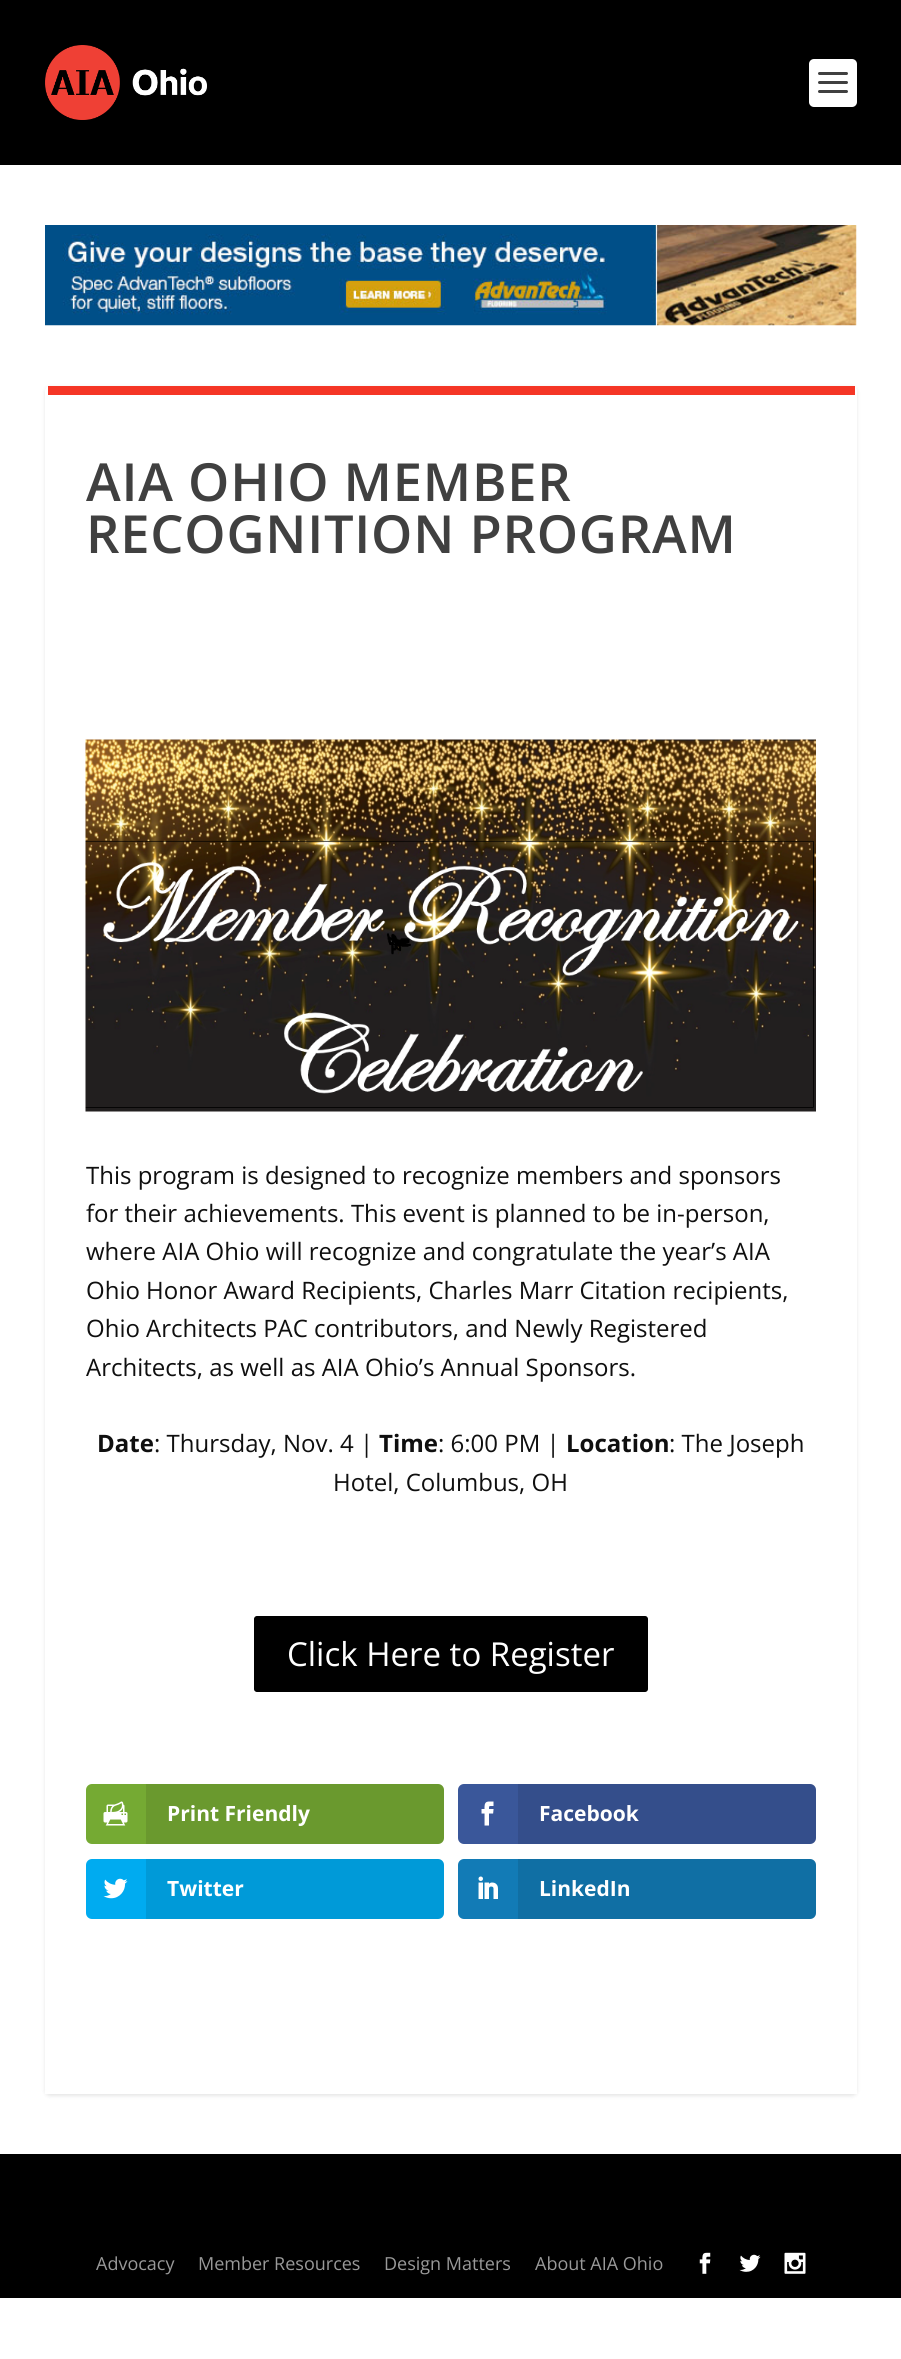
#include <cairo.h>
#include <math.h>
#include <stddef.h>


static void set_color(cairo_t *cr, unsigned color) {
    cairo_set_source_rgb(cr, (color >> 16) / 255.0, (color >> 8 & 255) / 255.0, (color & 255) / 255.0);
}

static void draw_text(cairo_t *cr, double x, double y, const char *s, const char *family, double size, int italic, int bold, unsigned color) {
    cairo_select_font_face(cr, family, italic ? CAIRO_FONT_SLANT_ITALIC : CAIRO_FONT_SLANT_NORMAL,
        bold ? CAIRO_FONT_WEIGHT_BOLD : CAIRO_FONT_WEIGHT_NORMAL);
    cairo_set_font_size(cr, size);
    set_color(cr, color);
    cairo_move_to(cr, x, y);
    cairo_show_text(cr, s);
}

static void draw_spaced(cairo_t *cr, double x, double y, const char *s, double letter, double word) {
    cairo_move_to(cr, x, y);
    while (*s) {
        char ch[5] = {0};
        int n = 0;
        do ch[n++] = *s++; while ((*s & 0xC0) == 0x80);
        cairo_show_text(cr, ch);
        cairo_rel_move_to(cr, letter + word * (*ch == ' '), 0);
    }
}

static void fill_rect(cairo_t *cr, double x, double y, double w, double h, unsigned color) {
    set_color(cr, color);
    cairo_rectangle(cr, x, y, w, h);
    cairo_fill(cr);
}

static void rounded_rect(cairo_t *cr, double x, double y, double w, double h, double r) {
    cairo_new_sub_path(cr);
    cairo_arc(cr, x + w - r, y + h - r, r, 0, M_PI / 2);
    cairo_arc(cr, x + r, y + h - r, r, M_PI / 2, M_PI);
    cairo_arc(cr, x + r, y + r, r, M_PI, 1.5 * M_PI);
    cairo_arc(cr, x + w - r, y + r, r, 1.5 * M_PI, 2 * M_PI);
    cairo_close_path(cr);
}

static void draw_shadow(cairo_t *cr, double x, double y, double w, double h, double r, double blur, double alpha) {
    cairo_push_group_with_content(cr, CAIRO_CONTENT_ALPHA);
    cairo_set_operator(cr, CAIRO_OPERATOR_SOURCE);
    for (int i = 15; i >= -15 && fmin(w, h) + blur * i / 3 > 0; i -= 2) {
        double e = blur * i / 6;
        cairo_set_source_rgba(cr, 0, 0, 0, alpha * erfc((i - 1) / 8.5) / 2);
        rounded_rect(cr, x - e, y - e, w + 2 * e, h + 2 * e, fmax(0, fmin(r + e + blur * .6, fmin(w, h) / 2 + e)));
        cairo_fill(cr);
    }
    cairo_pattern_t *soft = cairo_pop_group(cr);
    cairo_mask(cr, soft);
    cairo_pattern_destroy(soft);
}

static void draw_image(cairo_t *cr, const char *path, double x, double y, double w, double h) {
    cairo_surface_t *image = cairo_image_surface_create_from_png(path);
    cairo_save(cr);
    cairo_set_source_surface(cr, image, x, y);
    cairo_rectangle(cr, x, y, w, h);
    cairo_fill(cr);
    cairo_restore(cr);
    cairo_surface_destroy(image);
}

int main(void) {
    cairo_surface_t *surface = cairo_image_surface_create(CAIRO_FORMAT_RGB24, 901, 2359);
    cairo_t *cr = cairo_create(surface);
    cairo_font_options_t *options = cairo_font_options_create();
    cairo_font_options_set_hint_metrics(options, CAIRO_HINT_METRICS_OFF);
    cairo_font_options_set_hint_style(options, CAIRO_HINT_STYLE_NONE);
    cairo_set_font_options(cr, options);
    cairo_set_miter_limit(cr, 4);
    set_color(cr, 0xFFFFFF);
    cairo_paint(cr);
    fill_rect(cr, 0, 0, 901, 165, 0x000000);
    draw_image(cr, "assets/img1.png", 45, 45, 162, 75);
    set_color(cr, 0xFFFFFF);
    rounded_rect(cr, 809, 59, 48, 48, 5);
    cairo_fill(cr);
    set_color(cr, 0x404040);
    rounded_rect(cr, 818, 72, 30, 3, 1.5);
    cairo_fill(cr);
    rounded_rect(cr, 818, 81, 30, 3, 1.5);
    cairo_fill(cr);
    rounded_rect(cr, 818, 90, 30, 3, 1.5);
    cairo_fill(cr);
    draw_image(cr, "assets/img2.png", 45, 225, 812, 101);
    set_color(cr, 0x000000);
    draw_shadow(cr, 45, 387, 812, 1709, 5, 2, 0.1);
    set_color(cr, 0xFFFFFF);
    rounded_rect(cr, 45, 386, 812, 1708, 5);
    cairo_fill(cr);
    fill_rect(cr, 48, 386, 807, 9, 0xF53626);
    cairo_select_font_face(cr, "Open Sans SemiBold", CAIRO_FONT_SLANT_NORMAL, CAIRO_FONT_WEIGHT_NORMAL);
    cairo_set_font_size(cr, 52.5);
    set_color(cr, 0x404040);
    draw_spaced(cr, 86, 501, "AIA OHIO MEMBER", 0.75, 0);
    draw_spaced(cr, 86, 553, "RECOGNITION PROGRAM", 0.75, 0);
    draw_image(cr, "assets/img3.png", 85, 739, 731, 373);
    draw_text(cr, 86, 1184, "This program is designed to recognize members and sponsors", "Open Sans", 24, 0, 0, 0x0F0F0F);
    draw_text(cr, 86, 1222, "for their achievements. This event is planned to be in-person,", "Open Sans", 24, 0, 0, 0x0F0F0F);
    draw_text(cr, 86, 1260, "where AIA Ohio will recognize and congratulate the year’s AIA", "Open Sans", 24, 0, 0, 0x0F0F0F);
    draw_text(cr, 86, 1299, "Ohio Honor Award Recipients, Charles Marr Citation recipients,", "Open Sans", 24, 0, 0, 0x0F0F0F);
    draw_text(cr, 86, 1337, "Ohio Architects PAC contributors, and Newly Registered", "Open Sans", 24, 0, 0, 0x0F0F0F);
    draw_text(cr, 86, 1376, "Architects, as well as AIA Ohio’s Annual Sponsors.", "Open Sans", 24, 0, 0, 0x0F0F0F);
    draw_text(cr, 97, 1452, "Date", "Open Sans", 24, 0, 1, 0x0F0F0F);
    draw_text(cr, 154, 1452, ": Thursday, Nov. 4 |", "Open Sans", 24, 0, 0, 0x0F0F0F);
    draw_text(cr, 379, 1452, "Time", "Open Sans", 24, 0, 1, 0x0F0F0F);
    draw_text(cr, 438, 1452, ": 6:00 PM |", "Open Sans", 24, 0, 0, 0x0F0F0F);
    draw_text(cr, 566, 1452, "Location", "Open Sans", 24, 0, 1, 0x0F0F0F);
    draw_text(cr, 669, 1452, ": The Joseph", "Open Sans", 24, 0, 0, 0x0F0F0F);
    draw_text(cr, 333, 1491, "Hotel, Columbus, OH", "Open Sans", 24, 0, 0, 0x0F0F0F);
    fill_rect(cr, 45, 2090, 812, 4, 0xFFFFFF);
    set_color(cr, 0x000000);
    rounded_rect(cr, 253, 1615, 396, 78, 4);
    cairo_fill_preserve(cr);
    set_color(cr, 0xFFFFFF);
    cairo_stroke(cr);
    draw_text(cr, 287, 1666, "Click Here to Register", "Open Sans", 33, 0, 0, 0xFFFFFF);
    set_color(cr, 0x75AA33);
    rounded_rect(cr, 86, 1784, 358, 60, 6);
    cairo_fill(cr);
    draw_image(cr, "assets/img4.png", 103, 1801, 25, 25);
    cairo_set_source_rgba(cr, 0, 0, 0, 0.1);
    cairo_new_path(cr);
    cairo_move_to(cr, 146, 1784);
    cairo_line_to(cr, 438, 1784);
    cairo_curve_to(cr, 441.5, 1784, 444, 1786.5, 444, 1790);
    cairo_line_to(cr, 444, 1838);
    cairo_curve_to(cr, 444, 1841.5, 441.5, 1844, 438, 1844);
    cairo_line_to(cr, 146, 1844);
    cairo_close_path(cr);
    cairo_fill(cr);
    draw_text(cr, 167, 1821, "Print Friendly", "Open Sans", 21, 0, 1, 0xFFFFFF);
    set_color(cr, 0x3A579A);
    rounded_rect(cr, 458, 1784, 358, 60, 6);
    cairo_fill(cr);
    draw_image(cr, "assets/img5.png", 481, 1801, 13, 25);
    cairo_set_source_rgba(cr, 0, 0, 0, 0.1);
    cairo_new_path(cr);
    cairo_move_to(cr, 518, 1784);
    cairo_line_to(cr, 810, 1784);
    cairo_curve_to(cr, 813.5, 1784, 816, 1786.5, 816, 1790);
    cairo_line_to(cr, 816, 1838);
    cairo_curve_to(cr, 816, 1841.5, 813.5, 1844, 810, 1844);
    cairo_line_to(cr, 518, 1844);
    cairo_close_path(cr);
    cairo_fill(cr);
    draw_text(cr, 539, 1821, "Facebook", "Open Sans", 21, 0, 1, 0xFFFFFF);
    set_color(cr, 0x00ABF0);
    rounded_rect(cr, 86, 1859, 358, 60, 6);
    cairo_fill(cr);
    draw_image(cr, "assets/img6.png", 103, 1878, 25, 21);
    cairo_set_source_rgba(cr, 0, 0, 0, 0.1);
    cairo_new_path(cr);
    cairo_move_to(cr, 146, 1859);
    cairo_line_to(cr, 438, 1859);
    cairo_curve_to(cr, 441.5, 1859, 444, 1861.5, 444, 1865);
    cairo_line_to(cr, 444, 1913);
    cairo_curve_to(cr, 444, 1916.5, 441.5, 1919, 438, 1919);
    cairo_line_to(cr, 146, 1919);
    cairo_close_path(cr);
    cairo_fill(cr);
    draw_text(cr, 167, 1896, "Twitter", "Open Sans", 21, 0, 1, 0xFFFFFF);
    set_color(cr, 0x127BB6);
    rounded_rect(cr, 458, 1859, 358, 60, 6);
    cairo_fill(cr);
    draw_image(cr, "assets/img7.png", 478, 1876, 20, 23);
    cairo_set_source_rgba(cr, 0, 0, 0, 0.1);
    cairo_new_path(cr);
    cairo_move_to(cr, 518, 1859);
    cairo_line_to(cr, 810, 1859);
    cairo_curve_to(cr, 813.5, 1859, 816, 1861.5, 816, 1865);
    cairo_line_to(cr, 816, 1913);
    cairo_curve_to(cr, 816, 1916.5, 813.5, 1919, 810, 1919);
    cairo_line_to(cr, 518, 1919);
    cairo_close_path(cr);
    cairo_fill(cr);
    draw_text(cr, 539, 1896, "LinkedIn", "Open Sans", 21, 0, 1, 0xFFFFFF);
    fill_rect(cr, 0, 2154, 901, 144, 0x000000);
    draw_text(cr, 96, 2270, "Advocacy", "Open Sans", 18, 0, 0, 0x999999);
    draw_text(cr, 198, 2270, "Member Resources", "Open Sans", 18, 0, 0, 0x999999);
    draw_text(cr, 384, 2270, "Design Matters", "Open Sans", 18, 0, 0, 0x999999);
    draw_text(cr, 535, 2270, "About AIA Ohio", "Open Sans", 18, 0, 0, 0x999999);
    draw_image(cr, "assets/img8.png", 699, 2252, 12, 22);
    draw_image(cr, "assets/img9.png", 739, 2254, 22, 18);
    draw_image(cr, "assets/img10.png", 784, 2252, 22, 22);
    cairo_surface_write_to_png(surface, "output.png");
    cairo_font_options_destroy(options);
    cairo_destroy(cr);
    cairo_surface_destroy(surface);
    return 0;
}
